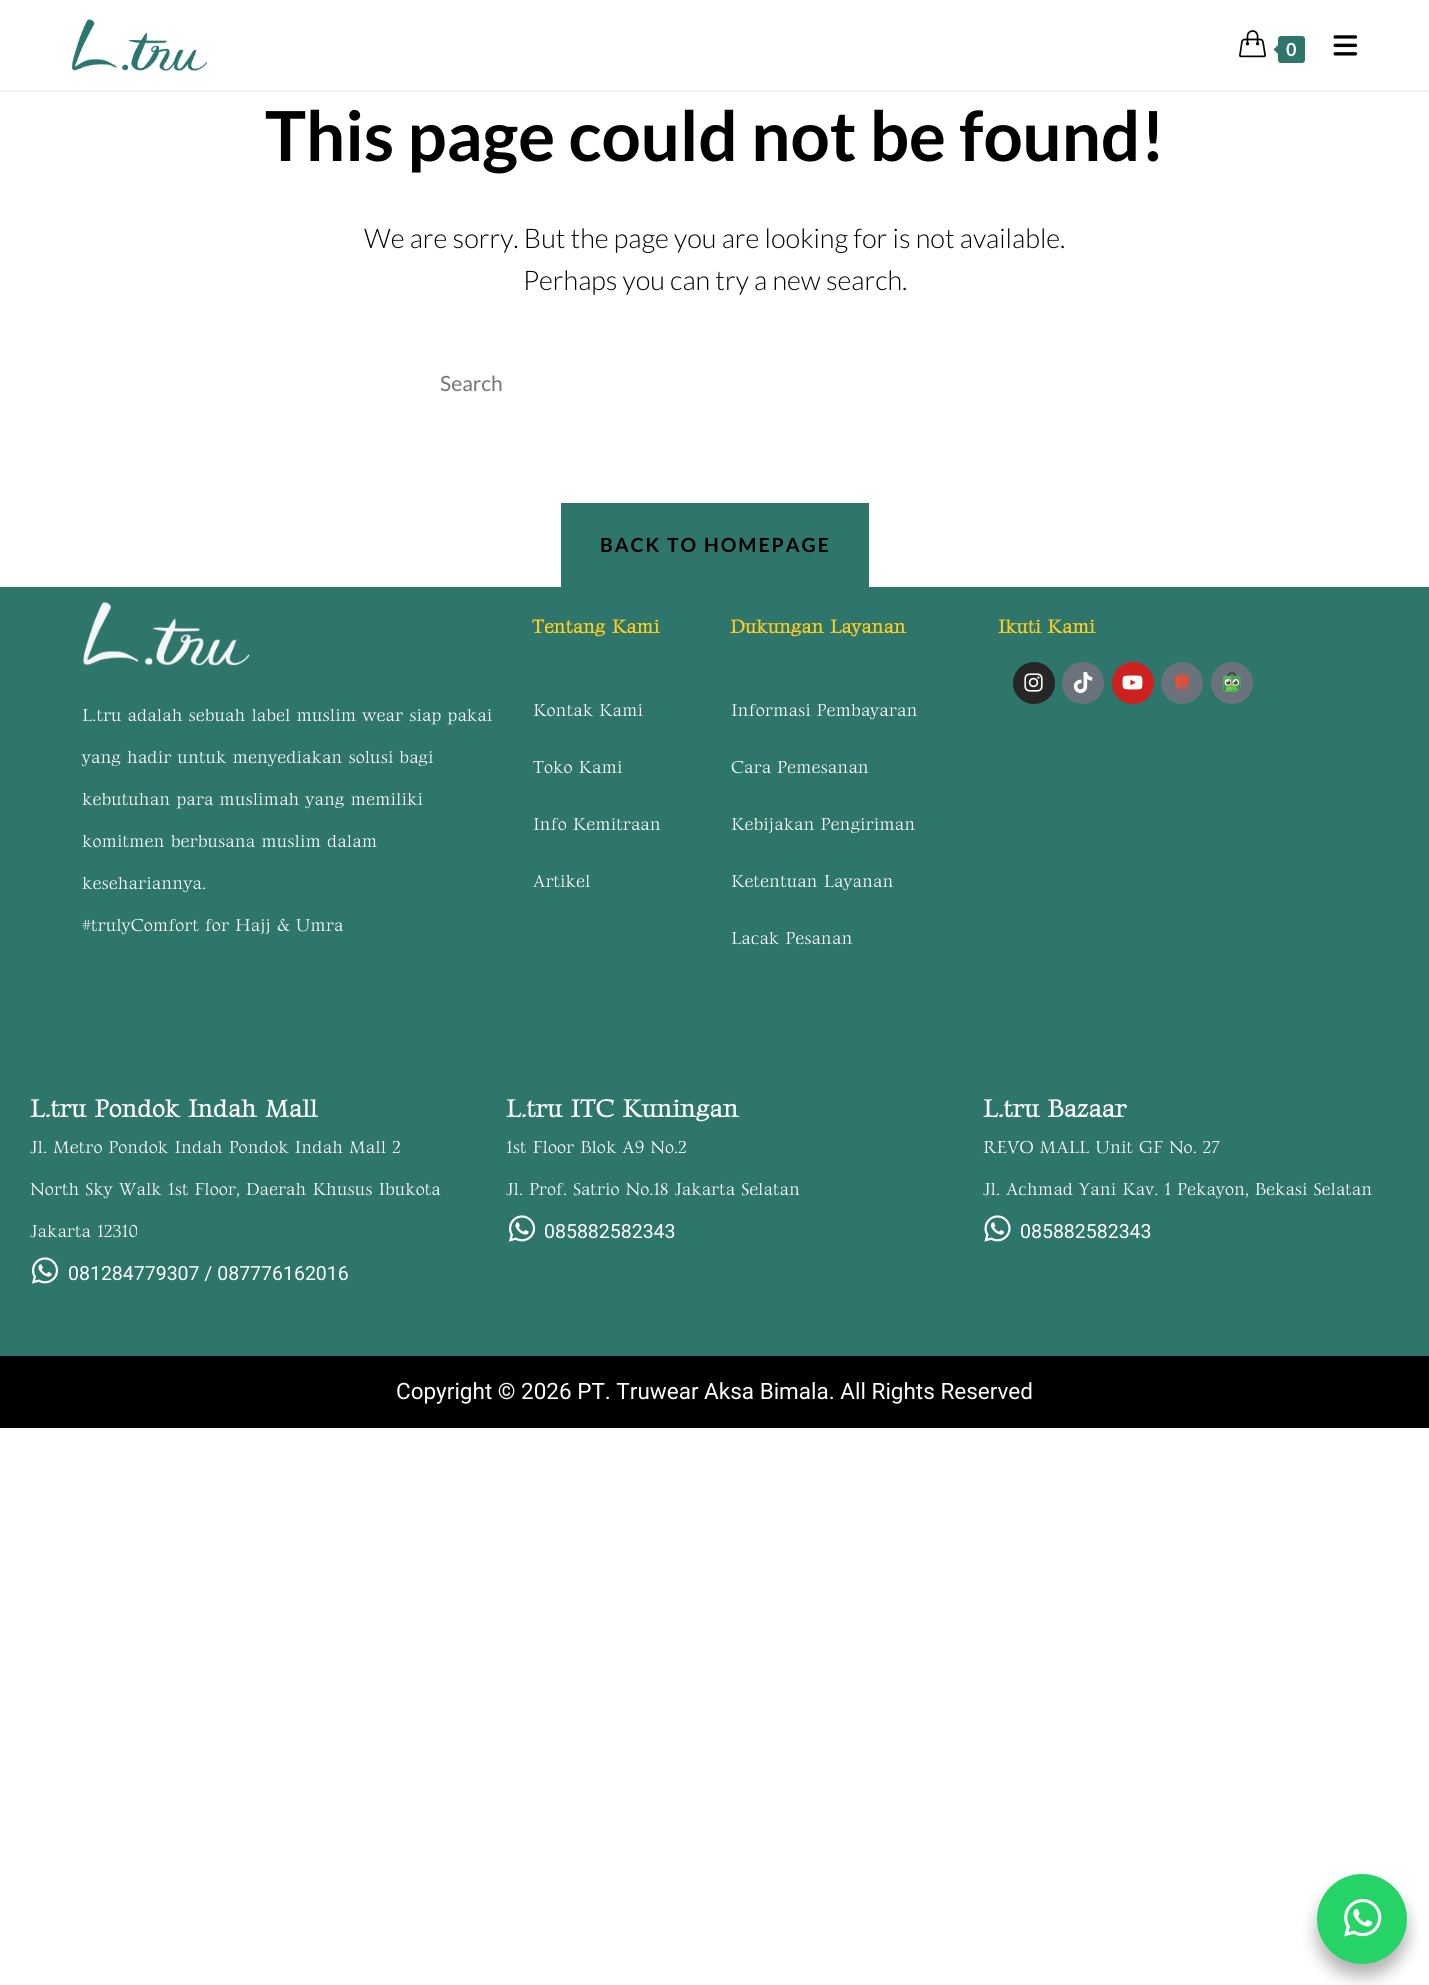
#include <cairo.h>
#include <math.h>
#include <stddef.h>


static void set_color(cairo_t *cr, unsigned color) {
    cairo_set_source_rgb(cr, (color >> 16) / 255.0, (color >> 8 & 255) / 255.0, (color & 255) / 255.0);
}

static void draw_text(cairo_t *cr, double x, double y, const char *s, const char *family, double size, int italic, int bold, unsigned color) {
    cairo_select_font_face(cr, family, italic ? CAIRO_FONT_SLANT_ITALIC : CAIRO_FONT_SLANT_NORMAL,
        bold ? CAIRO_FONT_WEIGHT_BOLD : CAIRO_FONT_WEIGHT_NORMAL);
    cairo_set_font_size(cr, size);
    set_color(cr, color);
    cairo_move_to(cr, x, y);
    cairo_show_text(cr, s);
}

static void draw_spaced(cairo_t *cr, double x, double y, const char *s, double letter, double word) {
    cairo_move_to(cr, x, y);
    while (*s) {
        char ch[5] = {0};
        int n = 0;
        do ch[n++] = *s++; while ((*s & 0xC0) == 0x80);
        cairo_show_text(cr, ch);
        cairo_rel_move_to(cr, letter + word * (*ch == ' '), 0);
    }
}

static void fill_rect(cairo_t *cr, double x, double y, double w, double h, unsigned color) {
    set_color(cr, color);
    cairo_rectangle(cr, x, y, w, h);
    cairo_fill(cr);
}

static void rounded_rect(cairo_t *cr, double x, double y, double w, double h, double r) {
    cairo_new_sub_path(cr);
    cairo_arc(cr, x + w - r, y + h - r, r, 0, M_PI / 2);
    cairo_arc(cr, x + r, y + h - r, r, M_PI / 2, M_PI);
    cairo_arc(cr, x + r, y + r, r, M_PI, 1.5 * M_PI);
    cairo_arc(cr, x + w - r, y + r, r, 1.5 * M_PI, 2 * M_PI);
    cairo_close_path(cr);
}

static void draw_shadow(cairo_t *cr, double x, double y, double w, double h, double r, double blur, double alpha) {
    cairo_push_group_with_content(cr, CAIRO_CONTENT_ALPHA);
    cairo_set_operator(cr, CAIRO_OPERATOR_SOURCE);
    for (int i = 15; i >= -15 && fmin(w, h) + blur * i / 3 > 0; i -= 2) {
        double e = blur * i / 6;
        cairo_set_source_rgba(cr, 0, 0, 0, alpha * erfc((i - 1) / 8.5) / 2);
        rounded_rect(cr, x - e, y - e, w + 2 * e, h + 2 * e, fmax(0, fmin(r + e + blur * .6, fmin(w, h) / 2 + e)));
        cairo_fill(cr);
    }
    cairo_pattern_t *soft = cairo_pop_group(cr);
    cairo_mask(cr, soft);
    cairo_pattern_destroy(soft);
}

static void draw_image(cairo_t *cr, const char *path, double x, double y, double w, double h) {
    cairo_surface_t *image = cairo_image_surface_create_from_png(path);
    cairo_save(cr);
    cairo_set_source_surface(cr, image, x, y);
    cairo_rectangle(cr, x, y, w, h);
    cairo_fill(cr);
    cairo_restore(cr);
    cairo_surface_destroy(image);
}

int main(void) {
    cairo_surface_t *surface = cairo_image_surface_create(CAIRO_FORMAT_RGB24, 1429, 1985);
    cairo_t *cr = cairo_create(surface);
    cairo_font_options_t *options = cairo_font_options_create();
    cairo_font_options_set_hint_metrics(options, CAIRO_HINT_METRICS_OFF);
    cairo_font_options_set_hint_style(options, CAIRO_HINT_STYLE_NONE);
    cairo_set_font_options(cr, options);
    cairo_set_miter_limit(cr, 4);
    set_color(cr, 0xFFFFFF);
    cairo_paint(cr);
    fill_rect(cr, 0, 90, 1429, 2, 0xF1F1F1);
    draw_image(cr, "assets/img1.png", 72, 19, 135, 52);
    draw_image(cr, "assets/img2.png", 1239, 30, 27, 28);
    set_color(cr, 0x2E766B);
    rounded_rect(cr, 1278, 36, 27, 27, 3);
    cairo_fill(cr);
    cairo_new_path(cr);
    cairo_move_to(cr, 1281, 42);
    cairo_line_to(cr, 1281, 57);
    cairo_line_to(cr, 1273.5, 49.5);
    cairo_close_path(cr);
    cairo_fill(cr);
    cairo_select_font_face(cr, "Lato", CAIRO_FONT_SLANT_NORMAL, CAIRO_FONT_WEIGHT_BOLD);
    cairo_set_font_size(cr, 18);
    set_color(cr, 0xFFFFFF);
    draw_spaced(cr, 1286, 56, "0", 1, 0);
    draw_image(cr, "assets/img3.png", 1333, 35, 25, 21);
    draw_text(cr, 265, 161, "This page could not be found!", "Lato", 69, 0, 1, 0x000000);
    draw_text(cr, 364, 248, "We are sorry. But the page you are looking for is not available.", "Lato Light", 27, 0, 0, 0x000000);
    draw_text(cr, 523, 290, "Perhaps you can try a new search.", "Lato Light", 27, 0, 0, 0x000000);
    draw_text(cr, 440, 391, "Search", "Lato", 21, 0, 0, 0x757575);
    fill_rect(cr, 561, 503, 308, 84, 0x2E766B);
    cairo_select_font_face(cr, "Lato", CAIRO_FONT_SLANT_NORMAL, CAIRO_FONT_WEIGHT_BOLD);
    cairo_set_font_size(cr, 19.5);
    set_color(cr, 0x000000);
    draw_spaced(cr, 600, 552, "BACK TO HOMEPAGE", 2, 0);
    fill_rect(cr, 0, 587, 1429, 769, 0x2E766B);
    draw_text(cr, 532, 633, "Tentang Kami", "Gideon Roman", 19.5, 0, 1, 0xFECD21);
    draw_text(cr, 533, 716, "Kontak Kami", "Gideon Roman", 18, 0, 0, 0xFFFFFF);
    draw_text(cr, 533, 773, "Toko Kami", "Gideon Roman", 18, 0, 0, 0xFFFFFF);
    draw_text(cr, 533, 830, "Info Kemitraan", "Gideon Roman", 18, 0, 0, 0xFFFFFF);
    draw_text(cr, 533, 887, "Artikel", "Gideon Roman", 18, 0, 0, 0xFFFFFF);
    draw_text(cr, 730, 633, "Dukungan Layanan", "Gideon Roman", 19.5, 0, 1, 0xFECD21);
    draw_text(cr, 731, 716, "Informasi Pembayaran", "Gideon Roman", 18, 0, 0, 0xFFFFFF);
    draw_text(cr, 731, 773, "Cara Pemesanan", "Gideon Roman", 18, 0, 0, 0xFFFFFF);
    draw_text(cr, 731, 830, "Kebijakan Pengiriman", "Gideon Roman", 18, 0, 0, 0xFFFFFF);
    draw_text(cr, 731, 887, "Ketentuan Layanan", "Gideon Roman", 18, 0, 0, 0xFFFFFF);
    draw_text(cr, 731, 944, "Lacak Pesanan", "Gideon Roman", 18, 0, 0, 0xFFFFFF);
    draw_text(cr, 998, 633, "Ikuti Kami", "Gideon Roman", 19.5, 0, 1, 0xFECD21);
    set_color(cr, 0x262626);
    cairo_new_path(cr);
    cairo_arc(cr, 1034, 683, 21, 0, 2 * M_PI);
    cairo_fill(cr);
    draw_image(cr, "assets/img4.png", 1024, 673, 19, 19);
    set_color(cr, 0x69727D);
    cairo_arc(cr, 1083, 683, 21, 0, 2 * M_PI);
    cairo_fill(cr);
    draw_image(cr, "assets/img5.png", 1073, 672, 20, 21);
    set_color(cr, 0xCD201F);
    cairo_arc(cr, 1133, 683, 21, 0, 2 * M_PI);
    cairo_fill(cr);
    draw_image(cr, "assets/img6.png", 1122, 675, 21, 15);
    set_color(cr, 0x69727D);
    cairo_arc(cr, 1182, 683, 21, 0, 2 * M_PI);
    cairo_fill(cr);
    draw_image(cr, "assets/img7.png", 1174, 672, 16, 21);
    cairo_arc(cr, 1232, 683, 21, 0, 2 * M_PI);
    cairo_fill(cr);
    draw_image(cr, "assets/img8.png", 1223, 672, 18, 20);
    draw_image(cr, "assets/img9.png", 83, 602, 167, 64);
    draw_text(cr, 82, 721, "L.tru adalah sebuah label muslim wear siap pakai", "Gideon Roman", 18, 0, 0, 0xFFFFFF);
    draw_text(cr, 82, 763, "yang hadir untuk menyediakan solusi bagi", "Gideon Roman", 18, 0, 0, 0xFFFFFF);
    draw_text(cr, 82, 805, "kebutuhan para muslimah yang memiliki", "Gideon Roman", 18, 0, 0, 0xFFFFFF);
    draw_text(cr, 82, 847, "komitmen berbusana muslim dalam", "Gideon Roman", 18, 0, 0, 0xFFFFFF);
    draw_text(cr, 82, 889, "kesehariannya.", "Gideon Roman", 18, 0, 0, 0xFFFFFF);
    draw_text(cr, 82, 931, "#trulyComfort for Hajj & Umra", "Gideon Roman", 18, 0, 0, 0xFFFFFF);
    draw_text(cr, 30, 1117, "L.tru Pondok Indah Mall", "Gideon Roman", 25.5, 0, 1, 0xFFFFFF);
    draw_text(cr, 30, 1153, "Jl. Metro Pondok Indah Pondok Indah Mall 2", "Gideon Roman", 18, 0, 0, 0xFFFFFF);
    draw_text(cr, 30, 1195, "North Sky Walk 1st Floor, Daerah Khusus Ibukota", "Gideon Roman", 18, 0, 0, 0xFFFFFF);
    draw_text(cr, 30, 1237, "Jakarta 12310", "Gideon Roman", 18, 0, 0, 0xFFFFFF);
    draw_image(cr, "assets/img10.png", 31, 1257, 28, 27);
    draw_text(cr, 68, 1280, "081284779307 / 087776162016", "Roboto", 19.5, 0, 0, 0xFFFFFF);
    draw_text(cr, 506, 1117, "L.tru ITC Kuningan", "Gideon Roman", 25.5, 0, 1, 0xFFFFFF);
    draw_text(cr, 506, 1153, "1st Floor Blok A9 No.2", "Gideon Roman", 18, 0, 0, 0xFFFFFF);
    draw_text(cr, 506, 1195, "Jl. Prof. Satrio No.18 Jakarta Selatan", "Gideon Roman", 18, 0, 0, 0xFFFFFF);
    draw_image(cr, "assets/img10.png", 508, 1215, 28, 27);
    draw_text(cr, 544, 1238, "085882582343", "Roboto", 19.5, 0, 0, 0xFFFFFF);
    draw_text(cr, 983, 1117, "L.tru Bazaar", "Gideon Roman", 25.5, 0, 1, 0xFFFFFF);
    draw_text(cr, 983, 1153, "REVO MALL Unit GF No. 27", "Gideon Roman", 18, 0, 0, 0xFFFFFF);
    draw_text(cr, 983, 1195, "Jl. Achmad Yani Kav. 1 Pekayon, Bekasi Selatan", "Gideon Roman", 18, 0, 0, 0xFFFFFF);
    draw_image(cr, "assets/img11.png", 984, 1215, 27, 27);
    draw_text(cr, 1020, 1238, "085882582343", "Roboto", 19.5, 0, 0, 0xFFFFFF);
    fill_rect(cr, 0, 1356, 1429, 72, 0x000000);
    draw_text(cr, 396, 1399, "Copyright © 2026 PT. Truwear Aksa Bimala. All Rights Reserved", "Roboto", 22.5, 0, 0, 0xFFFFFF);
    set_color(cr, 0x000000);
    draw_shadow(cr, 1317, 1886, 90, 90, 45, 8, 0.3);
    set_color(cr, 0x25D366);
    cairo_arc(cr, 1362, 1919, 45, 0, 2 * M_PI);
    cairo_fill(cr);
    draw_image(cr, "assets/img12.png", 1344, 1899, 38, 38);
    cairo_surface_write_to_png(surface, "output.png");
    cairo_font_options_destroy(options);
    cairo_destroy(cr);
    cairo_surface_destroy(surface);
    return 0;
}
